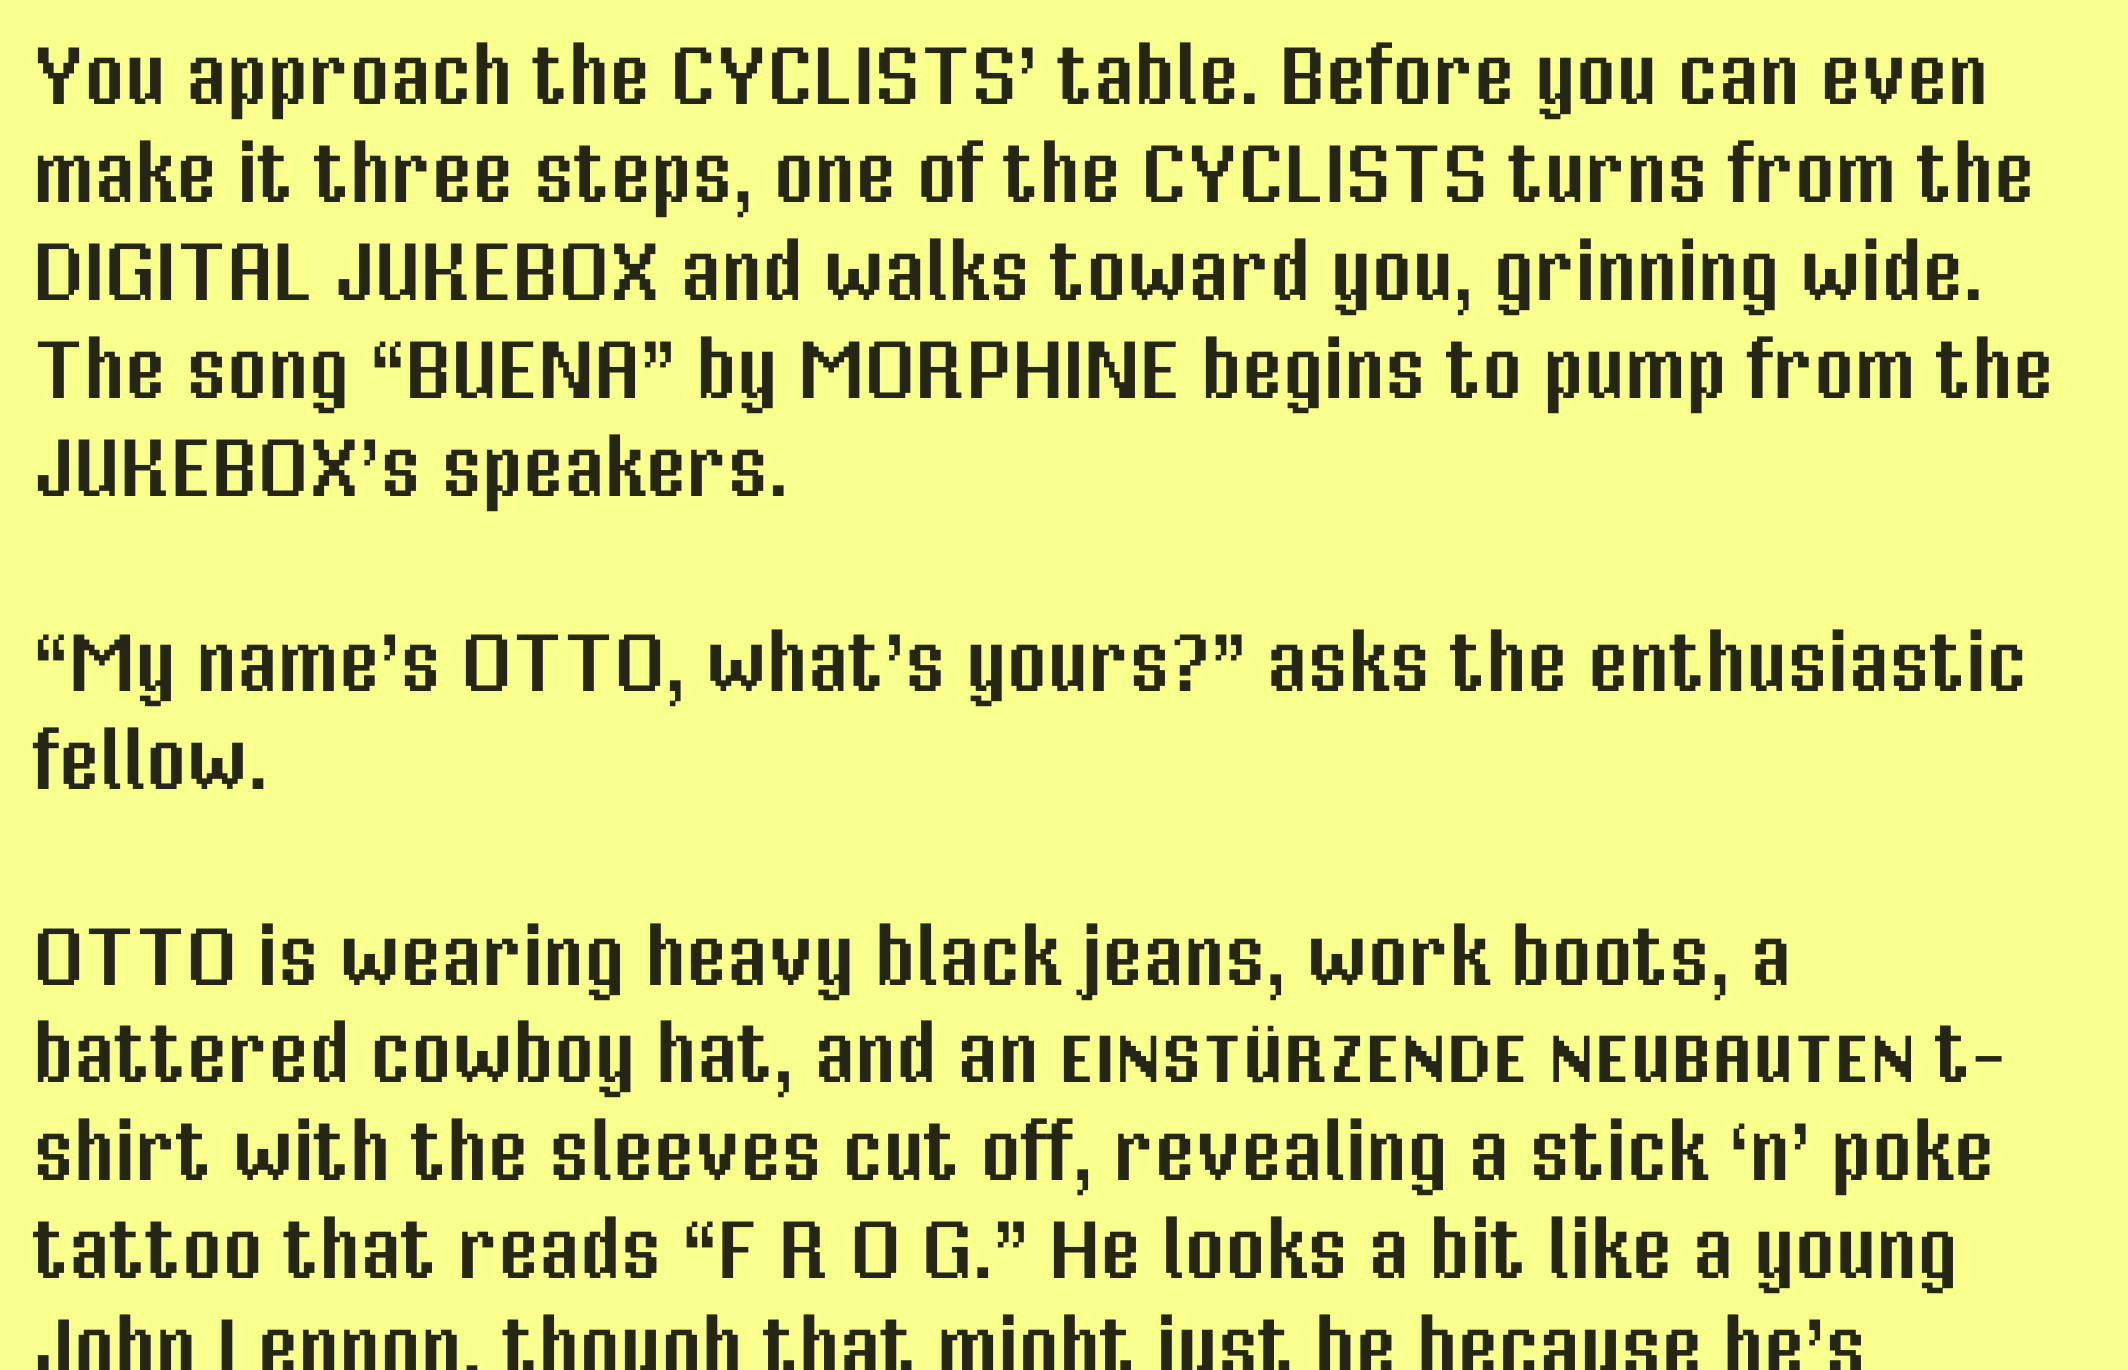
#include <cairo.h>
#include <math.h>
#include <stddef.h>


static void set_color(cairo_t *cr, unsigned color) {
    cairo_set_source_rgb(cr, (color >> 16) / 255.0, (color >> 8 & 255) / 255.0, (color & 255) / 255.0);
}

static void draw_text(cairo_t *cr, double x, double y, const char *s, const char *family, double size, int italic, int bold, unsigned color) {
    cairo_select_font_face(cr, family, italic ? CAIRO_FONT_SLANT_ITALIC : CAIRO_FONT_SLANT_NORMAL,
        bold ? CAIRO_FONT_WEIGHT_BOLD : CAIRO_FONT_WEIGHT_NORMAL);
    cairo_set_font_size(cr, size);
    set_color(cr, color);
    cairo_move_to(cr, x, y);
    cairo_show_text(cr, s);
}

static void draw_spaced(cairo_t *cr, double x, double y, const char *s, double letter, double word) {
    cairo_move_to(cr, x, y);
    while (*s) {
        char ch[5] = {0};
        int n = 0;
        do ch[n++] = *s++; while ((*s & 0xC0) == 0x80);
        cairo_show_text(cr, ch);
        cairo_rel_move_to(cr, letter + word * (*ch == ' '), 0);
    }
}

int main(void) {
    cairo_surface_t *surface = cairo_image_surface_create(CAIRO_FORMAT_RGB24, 2128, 1370);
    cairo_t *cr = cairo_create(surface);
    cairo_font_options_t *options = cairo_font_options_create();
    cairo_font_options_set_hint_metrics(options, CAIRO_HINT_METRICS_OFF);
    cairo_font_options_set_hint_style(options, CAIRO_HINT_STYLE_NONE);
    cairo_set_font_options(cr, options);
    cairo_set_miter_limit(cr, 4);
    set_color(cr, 0xF9FF8B);
    cairo_paint(cr);
    cairo_select_font_face(cr, "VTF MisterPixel", CAIRO_FONT_SLANT_NORMAL, CAIRO_FONT_WEIGHT_NORMAL);
    cairo_set_font_size(cr, 81.5);
    set_color(cr, 0x252615);
    draw_spaced(cr, 33, 104, "You approach the CYCLISTS’ table. Before you can even", 0, -0.25);
    draw_text(cr, 33, 202, "make it three steps, one of the CYCLISTS turns from the", "VTF MisterPixel", 81.5, 0, 0, 0x252615);
    draw_spaced(cr, 33, 300, "DIGITAL JUKEBOX and walks toward you, grinning wide.", 0, -0.25);
    draw_text(cr, 33, 398, "The song “BUENA” by MORPHINE begins to pump from the", "VTF MisterPixel", 81.5, 0, 0, 0x252615);
    draw_text(cr, 33, 496, "JUKEBOX’s speakers.", "VTF MisterPixel", 81.5, 0, 0, 0x252615);
    draw_spaced(cr, 33, 691, "“My name’s OTTO, what’s yours?” asks the enthusiastic", 0, -0.25);
    draw_text(cr, 33, 789, "fellow.", "VTF MisterPixel", 81.5, 0, 0, 0x252615);
    draw_text(cr, 33, 985, "OTTO is wearing heavy black jeans, work boots, a", "VTF MisterPixel", 81.5, 0, 0, 0x252615);
    draw_text(cr, 33, 1082, "battered cowboy hat, and an", "VTF MisterPixel", 81.5, 0, 0, 0x252615);
    draw_text(cr, 1059, 1082, "einstürzende neubauten", "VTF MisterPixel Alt", 81.5, 0, 0, 0x252615);
    draw_text(cr, 1935, 1082, "t-", "VTF MisterPixel", 81.5, 0, 0, 0x252615);
    draw_text(cr, 33, 1180, "shirt with the sleeves cut off, revealing a stick ‘n’ poke", "VTF MisterPixel", 81.5, 0, 0, 0x252615);
    draw_text(cr, 33, 1278, "tattoo that reads “F R O G.” He looks a bit like a young", "VTF MisterPixel", 81.5, 0, 0, 0x252615);
    draw_text(cr, 33, 1376, "John Lennon, though that might just be because he’s", "VTF MisterPixel", 81.5, 0, 0, 0x252615);
    cairo_surface_write_to_png(surface, "output.png");
    cairo_font_options_destroy(options);
    cairo_destroy(cr);
    cairo_surface_destroy(surface);
    return 0;
}
